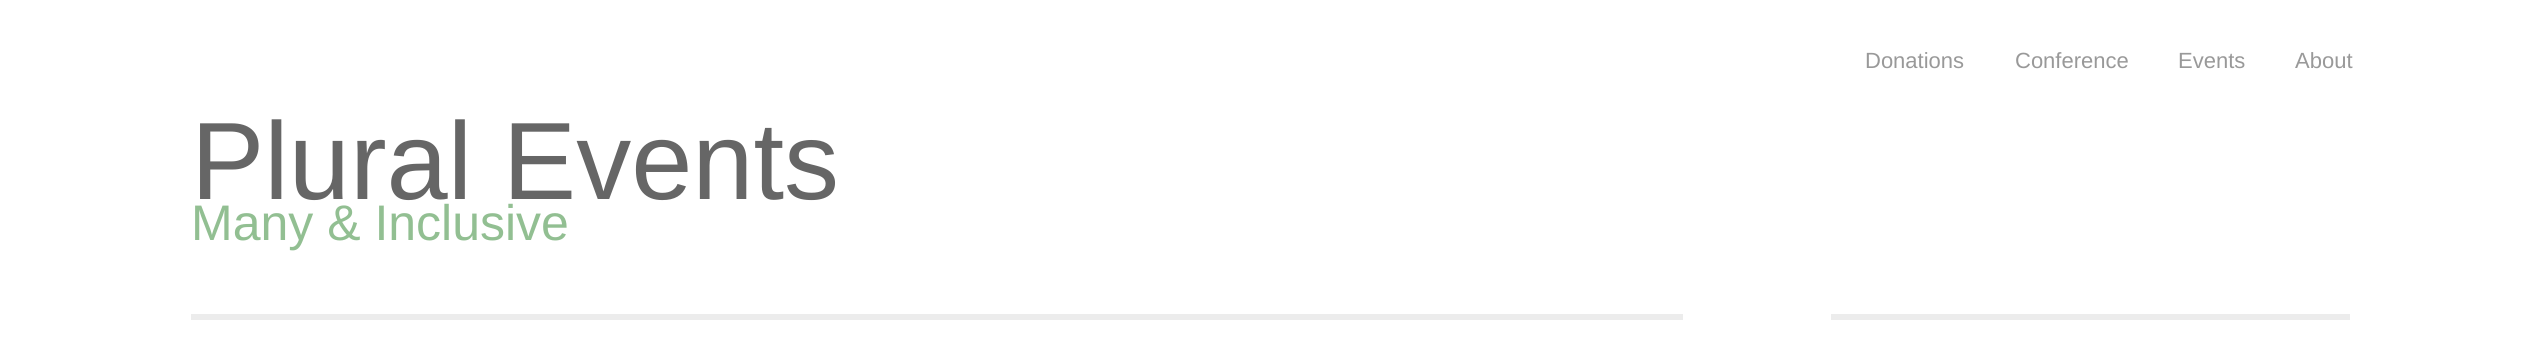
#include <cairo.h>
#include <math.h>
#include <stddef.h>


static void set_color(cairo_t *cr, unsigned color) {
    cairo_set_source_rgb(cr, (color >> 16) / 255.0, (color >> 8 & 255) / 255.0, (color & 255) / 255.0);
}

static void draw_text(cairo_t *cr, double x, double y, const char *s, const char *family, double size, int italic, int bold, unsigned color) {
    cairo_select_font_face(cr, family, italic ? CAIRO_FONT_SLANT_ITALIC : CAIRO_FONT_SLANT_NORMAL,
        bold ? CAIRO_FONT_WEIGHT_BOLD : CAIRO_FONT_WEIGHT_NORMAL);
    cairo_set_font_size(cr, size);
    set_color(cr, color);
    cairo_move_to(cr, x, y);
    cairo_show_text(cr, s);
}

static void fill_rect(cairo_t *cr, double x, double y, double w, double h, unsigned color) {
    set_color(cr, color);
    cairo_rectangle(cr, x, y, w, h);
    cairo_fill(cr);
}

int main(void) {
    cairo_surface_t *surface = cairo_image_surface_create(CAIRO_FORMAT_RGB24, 2543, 338);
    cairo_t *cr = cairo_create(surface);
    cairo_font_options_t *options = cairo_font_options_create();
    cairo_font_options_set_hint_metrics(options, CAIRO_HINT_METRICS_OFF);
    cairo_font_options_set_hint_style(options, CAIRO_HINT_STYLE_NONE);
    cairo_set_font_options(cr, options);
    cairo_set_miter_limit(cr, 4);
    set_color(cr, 0xFFFFFF);
    cairo_paint(cr);
    draw_text(cr, 1865, 68, "Donations", "Liberation Sans", 22, 0, 0, 0x999999);
    draw_text(cr, 2015, 68, "Conference", "Liberation Sans", 22, 0, 0, 0x999999);
    draw_text(cr, 2178, 68, "Events", "Liberation Sans", 22, 0, 0, 0x999999);
    draw_text(cr, 2295, 68, "About", "Liberation Sans", 22, 0, 0, 0x999999);
    draw_text(cr, 191, 199, "Plural Events", "Liberation Sans", 110, 0, 0, 0x666666);
    draw_text(cr, 191, 240, "Many & Inclusive", "Liberation Sans", 50, 0, 0, 0x92BF92);
    fill_rect(cr, 191, 314, 1492, 6, 0xECECEC);
    fill_rect(cr, 1831, 314, 519, 6, 0xECECEC);
    cairo_surface_write_to_png(surface, "output.png");
    cairo_font_options_destroy(options);
    cairo_destroy(cr);
    cairo_surface_destroy(surface);
    return 0;
}
